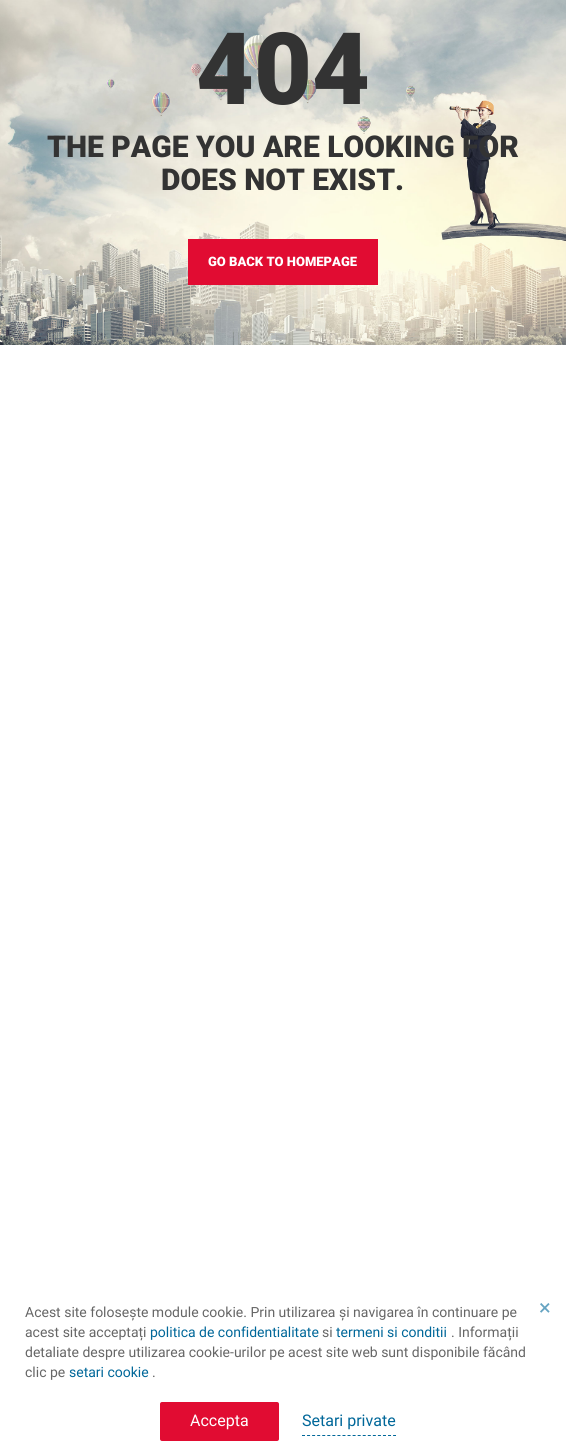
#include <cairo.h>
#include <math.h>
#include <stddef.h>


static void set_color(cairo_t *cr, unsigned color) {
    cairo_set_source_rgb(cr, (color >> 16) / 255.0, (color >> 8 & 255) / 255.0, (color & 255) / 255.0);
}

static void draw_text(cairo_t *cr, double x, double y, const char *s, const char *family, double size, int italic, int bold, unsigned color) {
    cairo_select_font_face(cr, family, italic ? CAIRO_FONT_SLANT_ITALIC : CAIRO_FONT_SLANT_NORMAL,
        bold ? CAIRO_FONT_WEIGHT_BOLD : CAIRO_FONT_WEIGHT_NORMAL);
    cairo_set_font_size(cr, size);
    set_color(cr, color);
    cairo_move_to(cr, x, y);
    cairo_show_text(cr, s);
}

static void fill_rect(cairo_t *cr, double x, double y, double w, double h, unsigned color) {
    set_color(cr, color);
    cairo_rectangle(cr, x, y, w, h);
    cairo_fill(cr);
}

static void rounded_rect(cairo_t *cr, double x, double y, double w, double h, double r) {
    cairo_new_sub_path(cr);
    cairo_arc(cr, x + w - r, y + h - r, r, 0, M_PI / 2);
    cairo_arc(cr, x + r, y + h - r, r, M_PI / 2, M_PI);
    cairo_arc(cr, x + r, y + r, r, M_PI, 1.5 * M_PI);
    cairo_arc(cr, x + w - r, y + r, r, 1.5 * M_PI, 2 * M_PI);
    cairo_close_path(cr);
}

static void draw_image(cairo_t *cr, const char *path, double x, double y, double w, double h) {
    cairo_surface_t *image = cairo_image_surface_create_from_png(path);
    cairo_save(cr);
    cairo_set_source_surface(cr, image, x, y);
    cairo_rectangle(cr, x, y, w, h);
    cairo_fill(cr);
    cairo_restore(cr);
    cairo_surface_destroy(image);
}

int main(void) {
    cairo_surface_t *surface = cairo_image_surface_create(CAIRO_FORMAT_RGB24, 566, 1456);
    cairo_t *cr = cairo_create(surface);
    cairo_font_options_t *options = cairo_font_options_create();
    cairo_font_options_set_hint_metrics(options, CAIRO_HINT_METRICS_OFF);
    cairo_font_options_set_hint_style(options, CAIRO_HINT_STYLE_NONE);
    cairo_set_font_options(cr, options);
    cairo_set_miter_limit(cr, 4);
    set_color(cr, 0xFFFFFF);
    cairo_paint(cr);
    draw_image(cr, "assets/img1.png", 0, 0, 566, 345);
    draw_text(cr, 196, 104, "404", "Roboto Black", 100, 0, 0, 0x333333);
    draw_text(cr, 47, 157, "THE PAGE YOU ARE LOOKING FOR", "Roboto Black", 30, 0, 0, 0x333333);
    draw_text(cr, 161, 190, "DOES NOT EXIST.", "Roboto Black", 30, 0, 0, 0x333333);
    fill_rect(cr, 188, 239, 190, 46, 0xE10C32);
    draw_text(cr, 208, 266, "GO BACK TO HOMEPAGE", "Roboto Black", 13, 0, 0, 0xFFFFFF);
    draw_text(cr, 539, 1315, "×", "Roboto", 22, 0, 0, 0x66A4C2);
    set_color(cr, 0xE10C32);
    rounded_rect(cr, 160, 1402, 119, 39, 2);
    cairo_fill(cr);
    draw_text(cr, 190, 1426, "Accepta", "Roboto", 16, 0, 0, 0xFFFFFF);
    cairo_new_path(cr);
    cairo_move_to(cr, 302, 1435.5);
    cairo_line_to(cr, 396, 1435.5);
    set_color(cr, 0x006799);
    cairo_set_line_width(cr, 1);
    cairo_set_dash(cr, (double[]){3, 2.06}, 2, 0);
    cairo_stroke(cr);
    draw_text(cr, 302, 1426, "Setari private", "Roboto", 16, 0, 0, 0x006799);
    draw_text(cr, 25, 1317, "Acest site folosește module cookie. Prin utilizarea și navigarea în continuare pe", "Roboto", 14, 0, 0, 0x666666);
    draw_text(cr, 25, 1337, "acest site acceptați", "Roboto", 14, 0, 0, 0x666666);
    draw_text(cr, 150, 1337, "politica de confidentialitate", "Roboto", 14, 0, 0, 0x006799);
    draw_text(cr, 322, 1337, "si", "Roboto", 14, 0, 0, 0x666666);
    draw_text(cr, 336, 1337, "termeni si conditii", "Roboto", 14, 0, 0, 0x006799);
    draw_text(cr, 451, 1337, ". Informații", "Roboto", 14, 0, 0, 0x666666);
    draw_text(cr, 25, 1357, "detaliate despre utilizarea cookie-urilor pe acest site web sunt disponibile făcând", "Roboto", 14, 0, 0, 0x666666);
    draw_text(cr, 25, 1377, "clic pe", "Roboto", 14, 0, 0, 0x666666);
    draw_text(cr, 69, 1377, "setari cookie", "Roboto", 14, 0, 0, 0x006799);
    draw_text(cr, 152, 1377, ".", "Roboto", 14, 0, 0, 0x666666);
    cairo_surface_write_to_png(surface, "output.png");
    cairo_font_options_destroy(options);
    cairo_destroy(cr);
    cairo_surface_destroy(surface);
    return 0;
}
